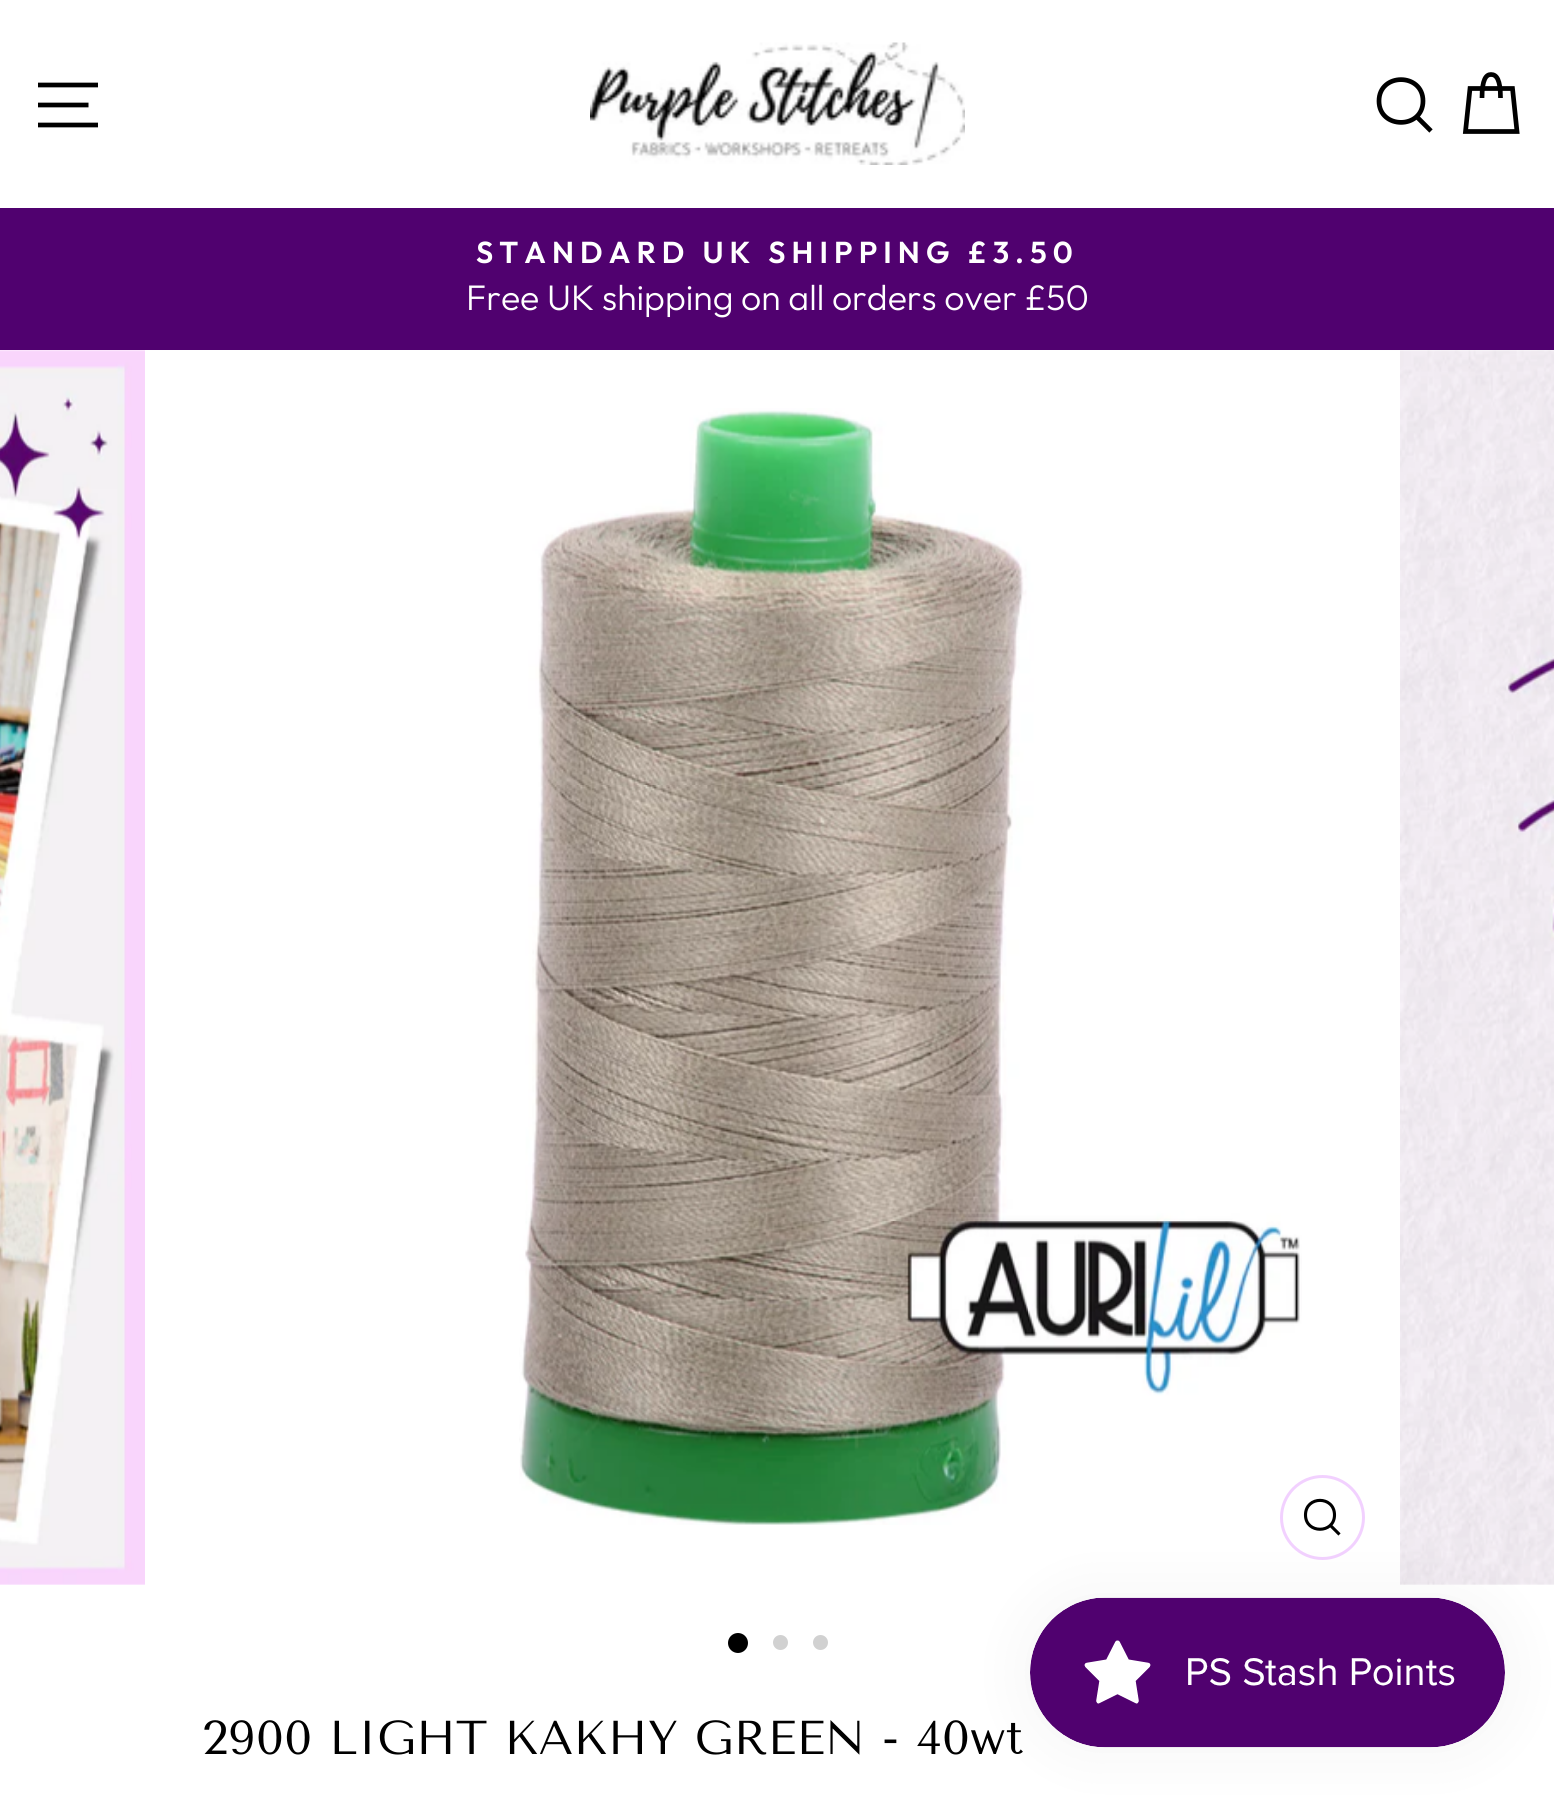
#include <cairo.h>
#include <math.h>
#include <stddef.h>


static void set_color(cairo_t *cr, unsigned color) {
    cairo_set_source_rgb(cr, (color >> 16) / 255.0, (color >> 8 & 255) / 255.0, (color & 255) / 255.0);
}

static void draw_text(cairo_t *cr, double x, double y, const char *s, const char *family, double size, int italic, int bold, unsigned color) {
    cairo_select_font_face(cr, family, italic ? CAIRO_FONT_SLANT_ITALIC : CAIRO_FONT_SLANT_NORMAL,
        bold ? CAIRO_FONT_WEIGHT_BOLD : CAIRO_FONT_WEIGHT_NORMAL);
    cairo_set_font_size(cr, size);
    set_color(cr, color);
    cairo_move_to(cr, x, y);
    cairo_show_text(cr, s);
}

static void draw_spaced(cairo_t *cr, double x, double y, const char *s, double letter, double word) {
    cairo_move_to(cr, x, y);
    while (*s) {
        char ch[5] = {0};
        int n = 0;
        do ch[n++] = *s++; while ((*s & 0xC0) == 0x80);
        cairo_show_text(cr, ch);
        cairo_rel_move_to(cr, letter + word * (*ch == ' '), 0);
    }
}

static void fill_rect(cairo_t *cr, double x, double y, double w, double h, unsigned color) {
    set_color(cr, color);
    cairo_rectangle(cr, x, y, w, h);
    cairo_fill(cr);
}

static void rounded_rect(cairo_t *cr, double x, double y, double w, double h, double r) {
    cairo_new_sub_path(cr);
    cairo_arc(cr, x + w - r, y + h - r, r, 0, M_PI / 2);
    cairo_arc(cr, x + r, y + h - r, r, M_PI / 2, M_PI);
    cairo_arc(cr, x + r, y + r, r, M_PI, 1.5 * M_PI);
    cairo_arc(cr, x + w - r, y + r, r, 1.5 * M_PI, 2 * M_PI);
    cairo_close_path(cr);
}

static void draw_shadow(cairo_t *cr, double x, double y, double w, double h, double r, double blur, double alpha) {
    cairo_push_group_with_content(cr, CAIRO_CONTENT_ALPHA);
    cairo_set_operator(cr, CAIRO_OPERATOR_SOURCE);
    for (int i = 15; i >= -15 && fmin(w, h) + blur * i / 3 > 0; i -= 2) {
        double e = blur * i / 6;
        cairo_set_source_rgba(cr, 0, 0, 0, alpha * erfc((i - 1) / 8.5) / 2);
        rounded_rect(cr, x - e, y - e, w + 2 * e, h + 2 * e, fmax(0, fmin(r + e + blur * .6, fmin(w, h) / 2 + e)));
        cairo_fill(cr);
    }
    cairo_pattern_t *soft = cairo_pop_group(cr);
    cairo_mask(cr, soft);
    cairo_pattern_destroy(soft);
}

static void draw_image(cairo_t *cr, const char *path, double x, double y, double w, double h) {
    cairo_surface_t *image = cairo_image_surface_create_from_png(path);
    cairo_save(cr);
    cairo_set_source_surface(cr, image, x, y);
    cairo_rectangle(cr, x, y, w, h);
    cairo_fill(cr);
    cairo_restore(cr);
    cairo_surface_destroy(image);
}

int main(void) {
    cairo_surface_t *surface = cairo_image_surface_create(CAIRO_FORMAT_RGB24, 1554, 1797);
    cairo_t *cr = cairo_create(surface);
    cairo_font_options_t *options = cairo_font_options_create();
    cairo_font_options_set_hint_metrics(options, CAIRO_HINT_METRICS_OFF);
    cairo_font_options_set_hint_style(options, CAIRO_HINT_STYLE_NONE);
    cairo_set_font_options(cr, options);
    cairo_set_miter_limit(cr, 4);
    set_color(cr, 0xFFFFFF);
    cairo_paint(cr);
    cairo_new_path(cr);
    cairo_move_to(cr, 38, 85);
    cairo_line_to(cr, 98, 85);
    cairo_move_to(cr, 38, 105);
    cairo_line_to(cr, 88.5, 105);
    cairo_move_to(cr, 38, 125);
    cairo_line_to(cr, 98, 125);
    set_color(cr, 0x000000);
    cairo_set_line_width(cr, 4.7);
    cairo_stroke(cr);
    draw_image(cr, "assets/img1.png", 590, 42, 375, 123);
    cairo_new_path(cr);
    cairo_move_to(cr, 1423, 101);
    cairo_curve_to(cr, 1423, 129.5, 1379, 129.5, 1379, 101);
    cairo_curve_to(cr, 1379, 72.5, 1423, 72.5, 1423, 101);
    cairo_close_path(cr);
    cairo_move_to(cr, 1431, 131);
    cairo_line_to(cr, 1416.5, 116.5);
    cairo_stroke(cr);
    cairo_new_path(cr);
    cairo_move_to(cr, 1482, 98);
    cairo_curve_to(cr, 1482, 79.5, 1486, 74.5, 1491, 74.5);
    cairo_curve_to(cr, 1496.5, 74.5, 1500.5, 79.5, 1500.5, 98);
    cairo_move_to(cr, 1470, 88.5);
    cairo_line_to(cr, 1512.5, 88.5);
    cairo_line_to(cr, 1517, 131.5);
    cairo_line_to(cr, 1465.5, 131.5);
    cairo_close_path(cr);
    cairo_stroke(cr);
    fill_rect(cr, 0, 208, 1554, 142, 0x50016F);
    cairo_select_font_face(cr, "Outfit SemiBold", CAIRO_FONT_SLANT_NORMAL, CAIRO_FONT_WEIGHT_NORMAL);
    cairo_set_font_size(cr, 30.25);
    set_color(cr, 0xFFFFFF);
    draw_spaced(cr, 476, 263, "STANDARD UK SHIPPING £3.50", 6.05, 0);
    draw_text(cr, 466, 310, "Free UK shipping on all orders over £50", "Outfit Light", 35.6, 0, 0, 0xFFFFFF);
    draw_image(cr, "assets/img2.png", 0, 350, 145, 1235);
    draw_image(cr, "assets/img3.png", 519, 408, 783, 1117);
    cairo_arc(cr, 1322.5, 1517.5, 41, 0, 2 * M_PI);
    set_color(cr, 0xF2D1FF);
    cairo_set_line_width(cr, 3);
    cairo_stroke(cr);
    cairo_new_path(cr);
    cairo_move_to(cr, 1334.5, 1515);
    cairo_curve_to(cr, 1334.5, 1534, 1305.5, 1534, 1305.5, 1515);
    cairo_curve_to(cr, 1305.5, 1495.5, 1334.5, 1495.5, 1334.5, 1515);
    cairo_close_path(cr);
    cairo_move_to(cr, 1339.5, 1534.5);
    cairo_line_to(cr, 1330.5, 1525.5);
    set_color(cr, 0x000000);
    cairo_set_line_width(cr, 3.1);
    cairo_stroke(cr);
    draw_image(cr, "assets/img4.png", 1400, 350, 154, 1235);
    cairo_arc(cr, 738, 1643, 10, 0, 2 * M_PI);
    cairo_fill(cr);
    set_color(cr, 0xD1D1D1);
    cairo_arc(cr, 780.5, 1642.5, 7.5, 0, 2 * M_PI);
    cairo_fill(cr);
    cairo_arc(cr, 820.5, 1642.5, 7.5, 0, 2 * M_PI);
    cairo_fill(cr);
    draw_text(cr, 202, 1754, "2900 LIGHT KAKHY GREEN - 40wt", "Tenor Sans", 47.5, 0, 0, 0x000000);
    set_color(cr, 0x000000);
    draw_shadow(cr, 1030, 1598, 475, 150, 75, 31, 0.05);
    draw_image(cr, "assets/img5.png", 1030, 1597, 475, 151);
    cairo_surface_write_to_png(surface, "output.png");
    cairo_font_options_destroy(options);
    cairo_destroy(cr);
    cairo_surface_destroy(surface);
    return 0;
}
